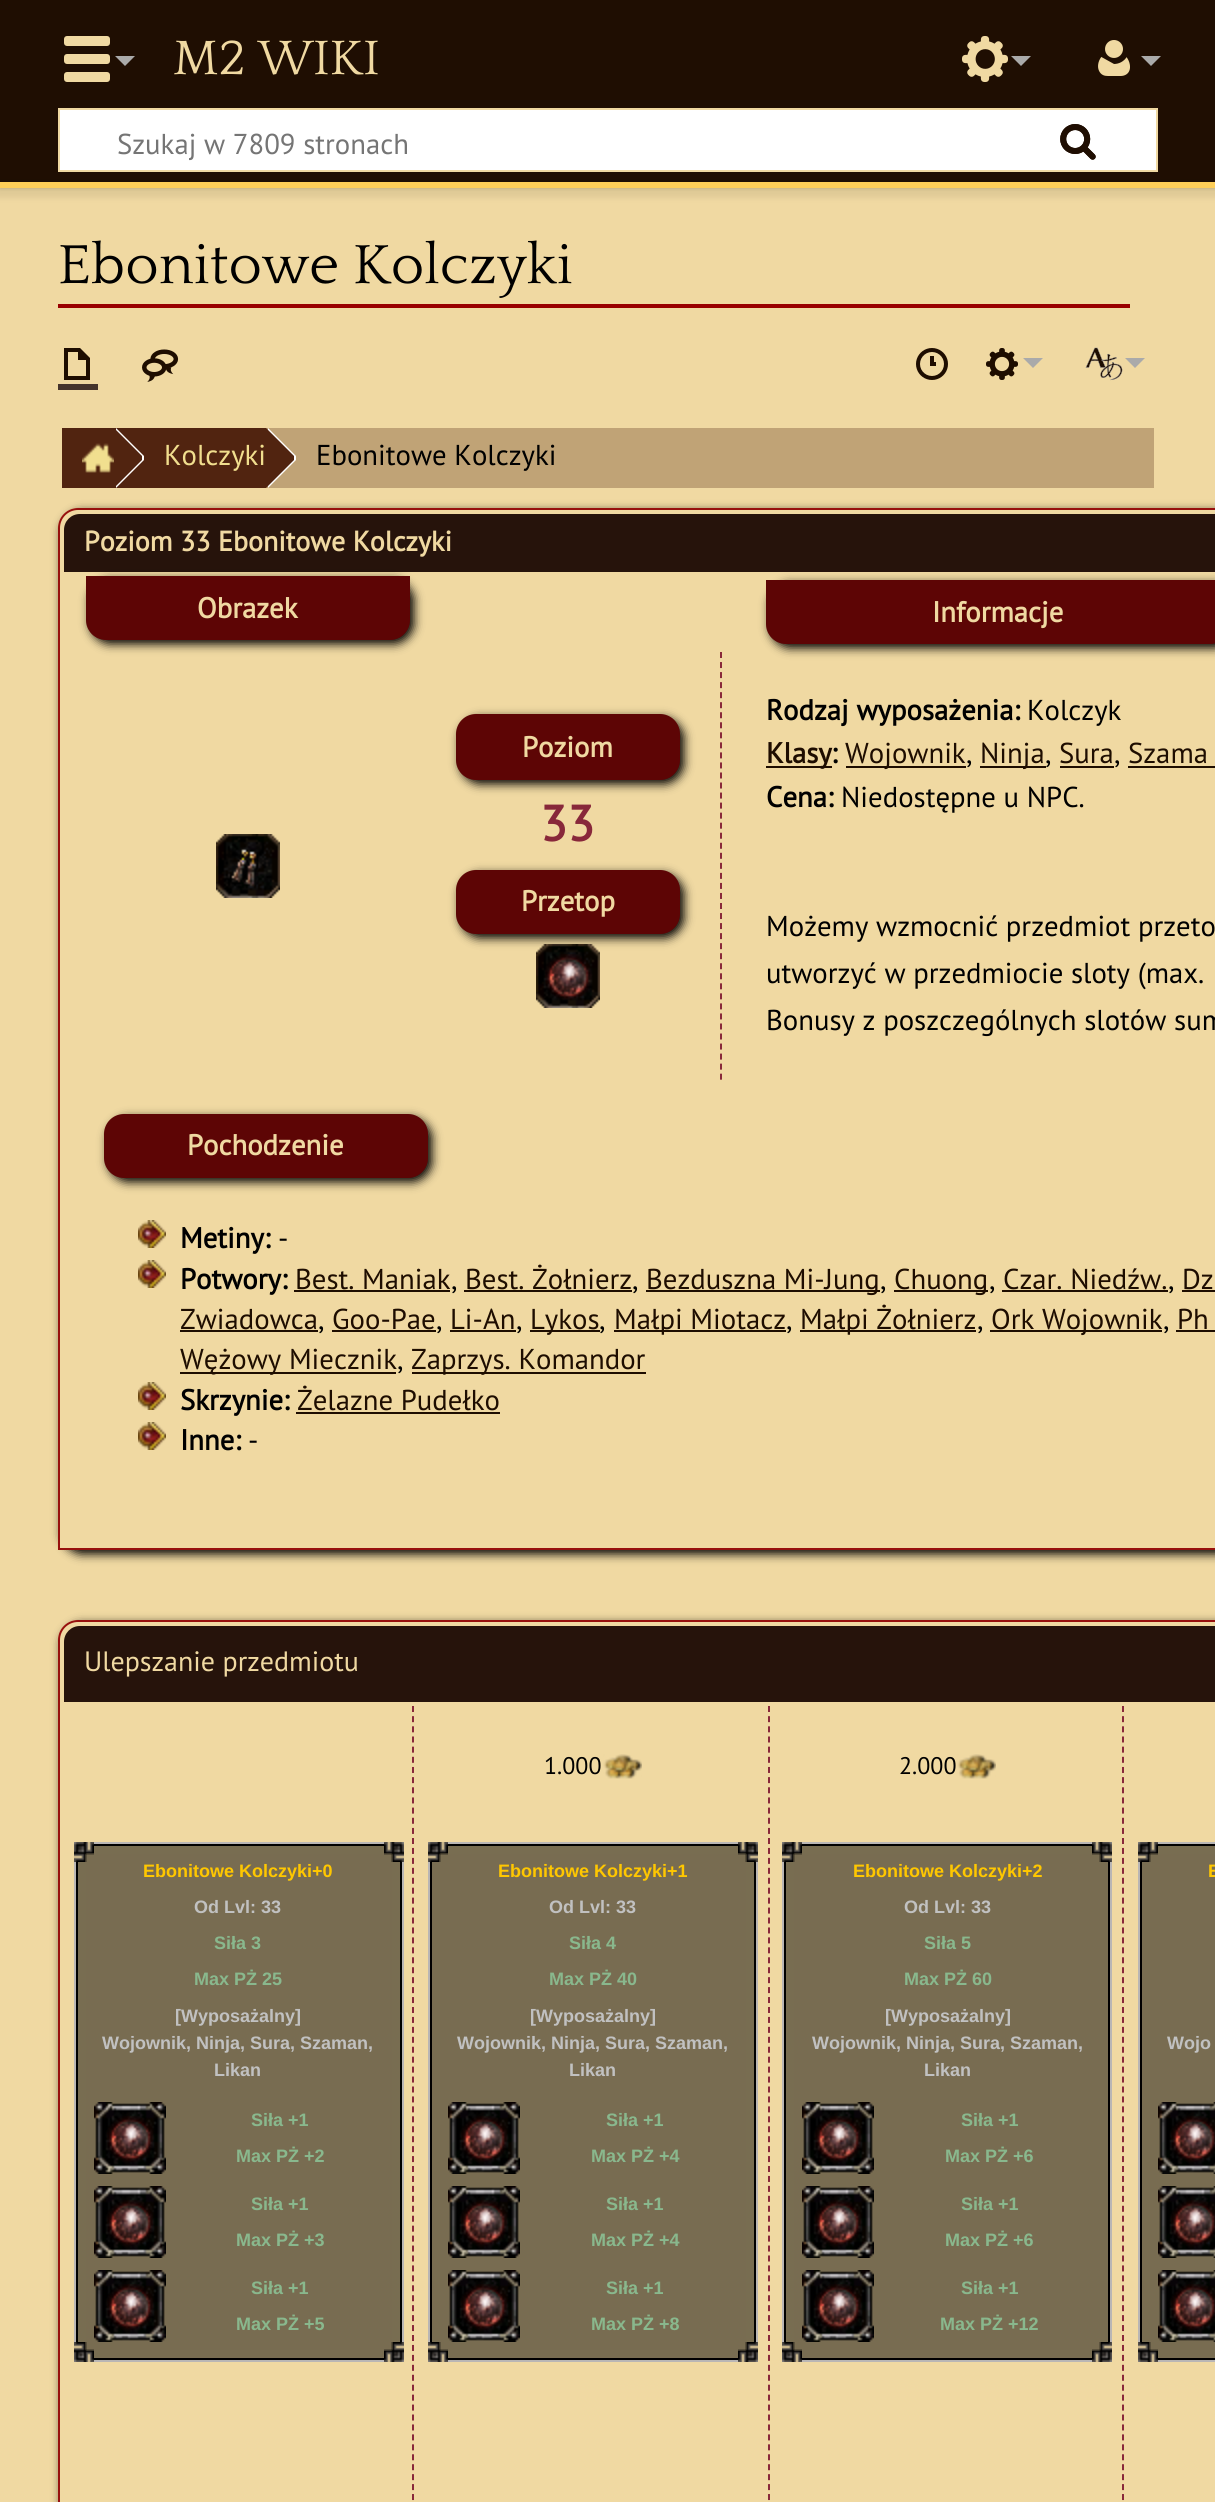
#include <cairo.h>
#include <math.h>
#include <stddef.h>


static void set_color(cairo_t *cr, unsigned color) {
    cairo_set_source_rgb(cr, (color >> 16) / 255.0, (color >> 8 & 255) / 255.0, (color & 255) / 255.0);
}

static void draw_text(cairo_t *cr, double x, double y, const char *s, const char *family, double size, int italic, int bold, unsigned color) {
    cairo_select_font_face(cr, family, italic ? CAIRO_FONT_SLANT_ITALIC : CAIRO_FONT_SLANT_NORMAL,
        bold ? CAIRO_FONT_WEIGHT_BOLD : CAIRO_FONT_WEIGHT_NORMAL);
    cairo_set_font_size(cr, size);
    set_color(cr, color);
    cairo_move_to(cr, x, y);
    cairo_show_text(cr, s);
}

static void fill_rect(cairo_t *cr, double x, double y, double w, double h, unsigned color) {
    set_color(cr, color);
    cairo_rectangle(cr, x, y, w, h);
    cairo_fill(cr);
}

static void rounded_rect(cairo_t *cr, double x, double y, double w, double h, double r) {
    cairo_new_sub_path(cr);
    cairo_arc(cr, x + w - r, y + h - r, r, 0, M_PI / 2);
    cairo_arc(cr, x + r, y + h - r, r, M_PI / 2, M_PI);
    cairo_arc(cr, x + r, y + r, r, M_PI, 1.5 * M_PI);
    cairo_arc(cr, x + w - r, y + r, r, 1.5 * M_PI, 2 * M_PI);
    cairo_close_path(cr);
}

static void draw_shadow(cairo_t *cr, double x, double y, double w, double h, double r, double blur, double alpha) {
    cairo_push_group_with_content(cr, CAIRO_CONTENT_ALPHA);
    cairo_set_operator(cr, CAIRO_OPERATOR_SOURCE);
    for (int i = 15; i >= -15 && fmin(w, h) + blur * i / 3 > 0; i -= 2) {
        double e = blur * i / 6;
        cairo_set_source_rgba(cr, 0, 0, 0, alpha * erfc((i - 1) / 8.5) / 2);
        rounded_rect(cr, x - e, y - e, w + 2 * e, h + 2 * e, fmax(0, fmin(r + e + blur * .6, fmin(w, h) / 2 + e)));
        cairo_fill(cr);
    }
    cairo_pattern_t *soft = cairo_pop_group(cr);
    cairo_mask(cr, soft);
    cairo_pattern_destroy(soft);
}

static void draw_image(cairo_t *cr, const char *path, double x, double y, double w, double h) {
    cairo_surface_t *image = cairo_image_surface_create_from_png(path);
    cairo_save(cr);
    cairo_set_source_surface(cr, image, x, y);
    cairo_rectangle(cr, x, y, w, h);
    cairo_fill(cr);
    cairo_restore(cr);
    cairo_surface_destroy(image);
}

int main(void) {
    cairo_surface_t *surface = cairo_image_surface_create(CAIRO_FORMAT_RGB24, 1215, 2502);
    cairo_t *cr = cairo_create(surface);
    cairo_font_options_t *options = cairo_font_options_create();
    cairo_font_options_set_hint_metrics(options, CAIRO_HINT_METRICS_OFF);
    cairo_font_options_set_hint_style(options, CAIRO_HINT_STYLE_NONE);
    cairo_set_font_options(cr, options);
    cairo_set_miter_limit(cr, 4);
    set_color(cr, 0x1F0E02);
    cairo_paint(cr);
    draw_text(cr, 173, 74, "M2 WIKI", "Quattrocento", 50.5, 0, 0, 0xF0D9A2);
    draw_image(cr, "assets/img1.png", 1098, 40, 32, 36);
    set_color(cr, 0xAAAAAA);
    cairo_new_path(cr);
    cairo_move_to(cr, 1161, 56);
    cairo_line_to(cr, 1151, 66);
    cairo_line_to(cr, 1141, 56);
    cairo_close_path(cr);
    cairo_fill(cr);
    set_color(cr, 0xFFFFFF);
    cairo_rectangle(cr, 59, 109, 1098, 62);
    cairo_fill_preserve(cr);
    set_color(cr, 0xF0D9A2);
    cairo_stroke(cr);
    draw_image(cr, "assets/img2.png", 1060, 124, 36, 36);
    draw_text(cr, 117, 154, "Szukaj w 7809 stronach", "PT Sans", 28.75, 0, 0, 0x757575);
    draw_image(cr, "assets/img3.png", 1060, 124, 36, 36);
    fill_rect(cr, 0, 188, 1215, 2314, 0xF0D9A2);
    set_color(cr, 0x000000);
    draw_shadow(cr, 0, 182, 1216, 6, 0, 2, 0.2);
    draw_shadow(cr, -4, 184, 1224, 14, 0, 3, 0.07);
    fill_rect(cr, 0, 182, 1215, 6, 0xFECE58);
    set_color(cr, 0xF0D9A2);
    rounded_rect(cr, 64, 72, 46, 10, 3);
    cairo_fill(cr);
    rounded_rect(cr, 64, 54, 46, 10, 3);
    cairo_fill(cr);
    rounded_rect(cr, 64, 36, 46, 10, 3);
    cairo_fill(cr);
    set_color(cr, 0xAAAAAA);
    cairo_new_path(cr);
    cairo_move_to(cr, 135, 56);
    cairo_line_to(cr, 125, 66);
    cairo_line_to(cr, 115, 56);
    cairo_close_path(cr);
    cairo_fill(cr);
    draw_image(cr, "assets/img4.png", 962, 36, 46, 46);
    cairo_new_path(cr);
    cairo_move_to(cr, 1031, 56);
    cairo_line_to(cr, 1021, 66);
    cairo_line_to(cr, 1011, 56);
    cairo_close_path(cr);
    cairo_fill(cr);
    fill_rect(cr, 58, 304, 1072, 4, 0x990000);
    draw_text(cr, 58, 283, "Ebonitowe Kolczyki", "Quattrocento", 57.5, 0, 0, 0x000000);
    fill_rect(cr, 58, 384, 40, 6, 0x45342C);
    set_color(cr, 0x1E0D00);
    cairo_set_fill_rule(cr, CAIRO_FILL_RULE_EVEN_ODD);
    cairo_new_path(cr);
    cairo_move_to(cr, 64, 348);
    cairo_line_to(cr, 64, 380);
    cairo_line_to(cr, 90, 380);
    cairo_line_to(cr, 90, 358);
    cairo_line_to(cr, 80, 348);
    cairo_close_path(cr);
    cairo_move_to(cr, 68, 352);
    cairo_line_to(cr, 78, 352);
    cairo_line_to(cr, 78, 360);
    cairo_line_to(cr, 86, 360);
    cairo_line_to(cr, 86, 376);
    cairo_line_to(cr, 68, 376);
    cairo_close_path(cr);
    cairo_fill(cr);
    draw_image(cr, "assets/img5.png", 142, 349, 37, 33);
    draw_image(cr, "assets/img6.png", 916, 348, 32, 32);
    draw_image(cr, "assets/img7.png", 986, 348, 32, 32);
    set_color(cr, 0xAAAAAA);
    cairo_set_fill_rule(cr, CAIRO_FILL_RULE_WINDING);
    cairo_new_path(cr);
    cairo_move_to(cr, 1043, 358);
    cairo_line_to(cr, 1033, 368);
    cairo_line_to(cr, 1023, 358);
    cairo_close_path(cr);
    cairo_fill(cr);
    draw_image(cr, "assets/img8.png", 1085, 347, 38, 34);
    cairo_new_path(cr);
    cairo_move_to(cr, 1145, 358);
    cairo_line_to(cr, 1135, 368);
    cairo_line_to(cr, 1125, 358);
    cairo_close_path(cr);
    cairo_fill(cr);
    fill_rect(cr, 266, 428, 888, 60, 0xC0A376);
    fill_rect(cr, 62, 428, 204, 60, 0x512410);
    set_color(cr, 0xFFFFFF);
    cairo_new_path(cr);
    cairo_move_to(cr, 116, 488);
    cairo_line_to(cr, 116, 428);
    cairo_line_to(cr, 144, 456);
    cairo_line_to(cr, 144, 460);
    cairo_close_path(cr);
    cairo_fill(cr);
    set_color(cr, 0x512410);
    cairo_new_path(cr);
    cairo_move_to(cr, 114, 488);
    cairo_line_to(cr, 114, 428);
    cairo_line_to(cr, 142, 456);
    cairo_line_to(cr, 142, 460);
    cairo_close_path(cr);
    cairo_fill(cr);
    draw_image(cr, "assets/img9.png", 82, 443, 32, 30);
    set_color(cr, 0xFFFFFF);
    cairo_new_path(cr);
    cairo_move_to(cr, 268, 488);
    cairo_line_to(cr, 268, 428);
    cairo_line_to(cr, 296, 456);
    cairo_line_to(cr, 296, 460);
    cairo_close_path(cr);
    cairo_fill(cr);
    set_color(cr, 0x512410);
    cairo_new_path(cr);
    cairo_move_to(cr, 266, 488);
    cairo_line_to(cr, 266, 428);
    cairo_line_to(cr, 294, 456);
    cairo_line_to(cr, 294, 460);
    cairo_close_path(cr);
    cairo_fill(cr);
    draw_text(cr, 164, 465, "Kolczyki", "PT Sans", 28.75, 0, 0, 0xF1DE8E);
    draw_text(cr, 316, 465, "Ebonitowe Kolczyki", "PT Sans", 28.75, 0, 0, 0x000000);
    cairo_save(cr);
    cairo_set_fill_rule(cr, CAIRO_FILL_RULE_EVEN_ODD);
    cairo_new_path(cr);
    cairo_move_to(cr, 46, 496);
    cairo_line_to(cr, 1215, 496);
    cairo_line_to(cr, 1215, 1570);
    cairo_line_to(cr, 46, 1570);
    cairo_close_path(cr);
    cairo_move_to(cr, 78, 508);
    cairo_line_to(cr, 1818, 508);
    cairo_curve_to(cr, 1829, 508, 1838, 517, 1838, 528);
    cairo_line_to(cr, 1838, 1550);
    cairo_line_to(cr, 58, 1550);
    cairo_line_to(cr, 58, 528);
    cairo_curve_to(cr, 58, 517, 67, 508, 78, 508);
    cairo_close_path(cr);
    cairo_clip(cr);
    set_color(cr, 0x000000);
    draw_shadow(cr, 62, 512, 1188, 1042, 20, 5, 1);
    cairo_restore(cr);
    cairo_new_path(cr);
    cairo_move_to(cr, 78, 509);
    cairo_line_to(cr, 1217, 509);
    cairo_curve_to(cr, 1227.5, 509, 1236, 517.5, 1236, 528);
    cairo_line_to(cr, 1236, 1549);
    cairo_line_to(cr, 59, 1549);
    cairo_line_to(cr, 59, 528);
    cairo_curve_to(cr, 59, 517.5, 67.5, 509, 78, 509);
    cairo_close_path(cr);
    set_color(cr, 0x97100D);
    cairo_stroke(cr);
    set_color(cr, 0x26130B);
    cairo_new_path(cr);
    cairo_move_to(cr, 80, 514);
    cairo_line_to(cr, 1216, 514);
    cairo_line_to(cr, 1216, 572);
    cairo_line_to(cr, 64, 572);
    cairo_line_to(cr, 64, 530);
    cairo_curve_to(cr, 64, 521, 71, 514, 80, 514);
    cairo_close_path(cr);
    cairo_fill(cr);
    draw_text(cr, 84, 551, "Poziom 33 Ebonitowe Kolczyki", "PT Sans", 28, 0, 1, 0xF0D9A2);
    set_color(cr, 0x000000);
    draw_shadow(cr, 90, 580, 324, 64, 20, 5, 1);
    set_color(cr, 0x5D0505);
    cairo_new_path(cr);
    cairo_move_to(cr, 87, 577);
    cairo_line_to(cr, 409, 577);
    cairo_line_to(cr, 409, 620);
    cairo_curve_to(cr, 409, 630.5, 400.5, 639, 390, 639);
    cairo_line_to(cr, 106, 639);
    cairo_curve_to(cr, 95.5, 639, 87, 630.5, 87, 620);
    cairo_close_path(cr);
    cairo_fill_preserve(cr);
    cairo_stroke(cr);
    draw_text(cr, 197, 618, "Obrazek", "PT Sans", 28.75, 0, 1, 0xF0D9A2);
    set_color(cr, 0x000000);
    draw_shadow(cr, 770, 584, 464, 64, 20, 5, 1);
    set_color(cr, 0x5D0505);
    cairo_new_path(cr);
    cairo_move_to(cr, 767, 581);
    cairo_line_to(cr, 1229, 581);
    cairo_line_to(cr, 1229, 624);
    cairo_curve_to(cr, 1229, 634.5, 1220.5, 643, 1210, 643);
    cairo_line_to(cr, 786, 643);
    cairo_curve_to(cr, 775.5, 643, 767, 634.5, 767, 624);
    cairo_close_path(cr);
    cairo_fill_preserve(cr);
    cairo_stroke(cr);
    draw_text(cr, 932, 622, "Informacje", "PT Sans", 28.75, 0, 1, 0xF0D9A2);
    draw_image(cr, "assets/img10.png", 216, 834, 64, 64);
    draw_image(cr, "assets/img11.png", 231, 849, 28, 38);
    cairo_new_path(cr);
    cairo_move_to(cr, 721, 652);
    cairo_line_to(cr, 721, 1080);
    set_color(cr, 0x88283A);
    cairo_set_dash(cr, (double[]){6, 4.04}, 2, 0);
    cairo_stroke(cr);
    set_color(cr, 0x000000);
    draw_shadow(cr, 460, 718, 224, 66, 20, 5, 1);
    set_color(cr, 0x5D0505);
    rounded_rect(cr, 457, 715, 222, 64, 19);
    cairo_fill_preserve(cr);
    cairo_set_dash(cr, NULL, 0, 0);
    cairo_stroke(cr);
    draw_text(cr, 522, 757, "Poziom", "PT Sans", 28.75, 0, 1, 0xF0D9A2);
    draw_text(cr, 540, 841, "33", "PT Sans", 50, 0, 1, 0x88283A);
    set_color(cr, 0x000000);
    draw_shadow(cr, 460, 874, 224, 64, 20, 5, 1);
    set_color(cr, 0x5D0505);
    rounded_rect(cr, 457, 871, 222, 62, 19);
    cairo_fill_preserve(cr);
    cairo_stroke(cr);
    draw_text(cr, 521, 911, "Przetop", "PT Sans", 28.75, 0, 1, 0xF0D9A2);
    draw_image(cr, "assets/img12.png", 536, 944, 64, 64);
    draw_image(cr, "assets/img13.png", 545, 954, 47, 46);
    draw_text(cr, 766, 720, "Rodzaj wyposażenia:", "PT Sans", 28.75, 0, 1, 0x000000);
    draw_text(cr, 1027, 720, "Kolczyk", "PT Sans", 28.75, 0, 0, 0x000000);
    fill_rect(cr, 766, 766, 66, 2, 0x1E0D00);
    draw_text(cr, 766, 763, "Klasy", "PT Sans", 28.75, 0, 1, 0x1E0D00);
    draw_text(cr, 831, 763, ":", "PT Sans", 28.75, 0, 1, 0x000000);
    fill_rect(cr, 846, 766, 120, 2, 0x1E0D00);
    draw_text(cr, 845, 763, "Wojownik", "PT Sans", 28.75, 0, 0, 0x1E0D00);
    draw_text(cr, 966, 763, ",", "PT Sans", 28.75, 0, 0, 0x000000);
    fill_rect(cr, 980, 766, 66, 2, 0x1E0D00);
    draw_text(cr, 980, 763, "Ninja", "PT Sans", 28.75, 0, 0, 0x1E0D00);
    draw_text(cr, 1045, 763, ",", "PT Sans", 28.75, 0, 0, 0x000000);
    draw_text(cr, 1059, 763, "Sura", "PT Sans", 28.75, 0, 0, 0x1E0D00);
    fill_rect(cr, 1060, 766, 54, 2, 0x1E0D00);
    draw_text(cr, 1114, 763, ",", "PT Sans", 28.75, 0, 0, 0x000000);
    draw_text(cr, 1128, 763, "Szama", "PT Sans", 28.75, 0, 0, 0x1E0D00);
    fill_rect(cr, 1128, 766, 87, 2, 0x1E0D00);
    draw_text(cr, 766, 807, "Cena:", "PT Sans", 28.75, 0, 1, 0x000000);
    draw_text(cr, 841, 807, "Niedostępne u NPC.", "PT Sans", 28.75, 0, 0, 0x000000);
    draw_text(cr, 766, 936, "Możemy wzmocnić przedmiot przeto", "PT Sans", 28.75, 0, 0, 0x000000);
    draw_text(cr, 766, 983, "utworzyć w przedmiocie sloty (max.", "PT Sans", 28.75, 0, 0, 0x000000);
    draw_text(cr, 766, 1030, "Bonusy z poszczególnych slotów sum", "PT Sans", 28.75, 0, 0, 0x000000);
    set_color(cr, 0x000000);
    draw_shadow(cr, 108, 1118, 324, 64, 20, 5, 1);
    set_color(cr, 0x5D0505);
    rounded_rect(cr, 105, 1115, 322, 62, 19);
    cairo_fill_preserve(cr);
    cairo_stroke(cr);
    draw_text(cr, 187, 1155, "Pochodzenie", "PT Sans", 28.75, 0, 1, 0xF0D9A2);
    draw_image(cr, "assets/img14.png", 138, 1220, 28, 28);
    draw_text(cr, 180, 1248, "Metiny:", "PT Sans", 28.75, 0, 1, 0x000000);
    draw_text(cr, 278, 1248, "-", "PT Sans", 28.75, 0, 0, 0x000000);
    draw_image(cr, "assets/img14.png", 138, 1260, 28, 28);
    draw_text(cr, 180, 1289, "Potwory:", "PT Sans", 28.75, 0, 1, 0x000000);
    draw_text(cr, 295, 1289, "Best. Maniak", "PT Sans", 28.75, 0, 0, 0x1E0D00);
    fill_rect(cr, 294, 1290, 156, 2, 0x1E0D00);
    draw_text(cr, 451, 1289, ",", "PT Sans", 28.75, 0, 0, 0x000000);
    draw_text(cr, 465, 1289, "Best. Żołnierz", "PT Sans", 28.75, 0, 0, 0x1E0D00);
    fill_rect(cr, 464, 1290, 168, 2, 0x1E0D00);
    draw_text(cr, 632, 1289, ",", "PT Sans", 28.75, 0, 0, 0x000000);
    fill_rect(cr, 646, 1290, 234, 2, 0x1E0D00);
    draw_text(cr, 646, 1289, "Bezduszna Mi-Jung", "PT Sans", 28.75, 0, 0, 0x1E0D00);
    draw_text(cr, 880, 1289, ",", "PT Sans", 28.75, 0, 0, 0x000000);
    fill_rect(cr, 894, 1290, 94, 2, 0x1E0D00);
    draw_text(cr, 894, 1289, "Chuong", "PT Sans", 28.75, 0, 0, 0x1E0D00);
    draw_text(cr, 989, 1289, ",", "PT Sans", 28.75, 0, 0, 0x000000);
    draw_text(cr, 1003, 1289, "Czar. Niedźw.", "PT Sans", 28.75, 0, 0, 0x1E0D00);
    fill_rect(cr, 1002, 1290, 166, 2, 0x1E0D00);
    draw_text(cr, 1168, 1289, ",", "PT Sans", 28.75, 0, 0, 0x000000);
    draw_text(cr, 1182, 1289, "Dz", "PT Sans", 28.75, 0, 0, 0x1E0D00);
    fill_rect(cr, 1182, 1290, 33, 2, 0x1E0D00);
    draw_text(cr, 180, 1329, "Zwiadowca", "PT Sans", 28.75, 0, 0, 0x1E0D00);
    fill_rect(cr, 180, 1330, 138, 2, 0x1E0D00);
    draw_text(cr, 332, 1329, "Goo-Pae", "PT Sans", 28.75, 0, 0, 0x1E0D00);
    fill_rect(cr, 332, 1330, 104, 2, 0x1E0D00);
    draw_text(cr, 450, 1329, "Li-An", "PT Sans", 28.75, 0, 0, 0x1E0D00);
    fill_rect(cr, 450, 1330, 66, 2, 0x1E0D00);
    fill_rect(cr, 530, 1330, 70, 2, 0x1E0D00);
    draw_text(cr, 530, 1329, "Lykos", "PT Sans", 28.75, 0, 0, 0x1E0D00);
    fill_rect(cr, 614, 1330, 172, 2, 0x1E0D00);
    draw_text(cr, 614, 1329, "Małpi Miotacz", "PT Sans", 28.75, 0, 0, 0x1E0D00);
    fill_rect(cr, 800, 1330, 176, 2, 0x1E0D00);
    draw_text(cr, 800, 1329, "Małpi Żołnierz", "PT Sans", 28.75, 0, 0, 0x1E0D00);
    fill_rect(cr, 990, 1330, 172, 2, 0x1E0D00);
    draw_text(cr, 991, 1329, "Ork Wojownik", "PT Sans", 28.75, 0, 0, 0x1E0D00);
    draw_text(cr, 1177, 1329, "Ph", "PT Sans", 28.75, 0, 0, 0x1E0D00);
    fill_rect(cr, 1176, 1330, 39, 2, 0x1E0D00);
    draw_text(cr, 318, 1329, ",", "PT Sans", 28.75, 0, 0, 0x000000);
    draw_text(cr, 436, 1329, ",", "PT Sans", 28.75, 0, 0, 0x000000);
    draw_text(cr, 516, 1329, ",", "PT Sans", 28.75, 0, 0, 0x000000);
    draw_text(cr, 599, 1329, ",", "PT Sans", 28.75, 0, 0, 0x000000);
    draw_text(cr, 786, 1329, ",", "PT Sans", 28.75, 0, 0, 0x000000);
    draw_text(cr, 977, 1329, ",", "PT Sans", 28.75, 0, 0, 0x000000);
    draw_text(cr, 1163, 1329, ",", "PT Sans", 28.75, 0, 0, 0x000000);
    fill_rect(cr, 180, 1372, 216, 2, 0x1E0D00);
    draw_text(cr, 180, 1369, "Wężowy Miecznik", "PT Sans", 28.75, 0, 0, 0x1E0D00);
    draw_text(cr, 397, 1369, ",", "PT Sans", 28.75, 0, 0, 0x000000);
    fill_rect(cr, 412, 1372, 234, 2, 0x1E0D00);
    draw_text(cr, 411, 1369, "Zaprzys. Komandor", "PT Sans", 28.75, 0, 0, 0x1E0D00);
    draw_image(cr, "assets/img14.png", 138, 1382, 28, 28);
    draw_text(cr, 180, 1410, "Skrzynie:", "PT Sans", 28.75, 0, 1, 0x000000);
    draw_text(cr, 297, 1410, "Żelazne Pudełko", "PT Sans", 28.75, 0, 0, 0x1E0D00);
    fill_rect(cr, 296, 1412, 204, 2, 0x1E0D00);
    draw_image(cr, "assets/img14.png", 138, 1422, 28, 28);
    draw_text(cr, 180, 1450, "Inne:", "PT Sans", 28.75, 0, 1, 0x000000);
    draw_text(cr, 248, 1450, "-", "PT Sans", 28.75, 0, 0, 0x000000);
    cairo_save(cr);
    cairo_set_fill_rule(cr, CAIRO_FILL_RULE_EVEN_ODD);
    cairo_new_path(cr);
    cairo_move_to(cr, 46, 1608);
    cairo_line_to(cr, 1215, 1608);
    cairo_line_to(cr, 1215, 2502);
    cairo_line_to(cr, 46, 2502);
    cairo_close_path(cr);
    cairo_move_to(cr, 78, 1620);
    cairo_line_to(cr, 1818, 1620);
    cairo_curve_to(cr, 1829, 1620, 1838, 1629, 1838, 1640);
    cairo_line_to(cr, 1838, 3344);
    cairo_line_to(cr, 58, 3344);
    cairo_line_to(cr, 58, 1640);
    cairo_curve_to(cr, 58, 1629, 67, 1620, 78, 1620);
    cairo_close_path(cr);
    cairo_clip(cr);
    set_color(cr, 0x000000);
    draw_shadow(cr, 62, 1624, 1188, 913, 20, 5, 1);
    cairo_restore(cr);
    cairo_new_path(cr);
    cairo_move_to(cr, 78, 1621);
    cairo_line_to(cr, 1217, 1621);
    cairo_curve_to(cr, 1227.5, 1621, 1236, 1629.5, 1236, 1640);
    cairo_line_to(cr, 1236, 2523);
    cairo_line_to(cr, 59, 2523);
    cairo_line_to(cr, 59, 1640);
    cairo_curve_to(cr, 59, 1629.5, 67.5, 1621, 78, 1621);
    cairo_close_path(cr);
    set_color(cr, 0x97100D);
    cairo_stroke(cr);
    set_color(cr, 0x26130B);
    cairo_new_path(cr);
    cairo_move_to(cr, 80, 1626);
    cairo_line_to(cr, 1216, 1626);
    cairo_line_to(cr, 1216, 1702);
    cairo_line_to(cr, 64, 1702);
    cairo_line_to(cr, 64, 1642);
    cairo_curve_to(cr, 64, 1633, 71, 1626, 80, 1626);
    cairo_close_path(cr);
    cairo_fill(cr);
    draw_text(cr, 84, 1671, "Ulepszanie przedmiotu", "PT Sans", 28, 0, 0, 0xF0D9A2);
    cairo_new_path(cr);
    cairo_move_to(cr, 413, 1706);
    cairo_line_to(cr, 413, 1834);
    set_color(cr, 0x88283A);
    cairo_set_dash(cr, (double[]){6, 4.16}, 2, 0);
    cairo_stroke(cr);
    cairo_new_path(cr);
    cairo_move_to(cr, 769, 1706);
    cairo_line_to(cr, 769, 1834);
    cairo_stroke(cr);
    draw_text(cr, 544, 1774, "1.000", "PT Sans", 24, 0, 0, 0x000000);
    draw_image(cr, "assets/img15.png", 603, 1754, 39, 25);
    cairo_new_path(cr);
    cairo_move_to(cr, 1123, 1706);
    cairo_line_to(cr, 1123, 1834);
    set_color(cr, 0x88283A);
    cairo_stroke(cr);
    draw_text(cr, 899, 1774, "2.000", "PT Sans", 24, 0, 0, 0x000000);
    draw_image(cr, "assets/img15.png", 957, 1754, 39, 25);
    cairo_new_path(cr);
    cairo_move_to(cr, 413, 1838);
    cairo_line_to(cr, 413, 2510);
    set_color(cr, 0x88283A);
    cairo_set_dash(cr, (double[]){6, 3.94}, 2, 0);
    cairo_stroke(cr);
    draw_image(cr, "assets/img16.png", 74, 1842, 20, 20);
    fill_rect(cr, 94, 1842, 290, 2, 0xB9B6B5);
    fill_rect(cr, 94, 1844, 290, 2, 0x000000);
    fill_rect(cr, 94, 1846, 290, 8, 0x786D51);
    fill_rect(cr, 94, 2350, 290, 8, 0x786D51);
    fill_rect(cr, 94, 2358, 290, 2, 0x000000);
    fill_rect(cr, 94, 2360, 290, 2, 0xB9B6B5);
    draw_image(cr, "assets/img17.png", 384, 1842, 20, 20);
    fill_rect(cr, 74, 1862, 2, 480, 0xB9B6B5);
    fill_rect(cr, 76, 1862, 2, 480, 0x000000);
    fill_rect(cr, 78, 1862, 8, 480, 0x786D51);
    fill_rect(cr, 392, 1862, 8, 480, 0x786D51);
    fill_rect(cr, 400, 1862, 2, 480, 0x000000);
    fill_rect(cr, 402, 1862, 2, 480, 0xB9B6B5);
    draw_image(cr, "assets/img20.png", 74, 2342, 20, 20);
    draw_image(cr, "assets/img21.png", 384, 2342, 20, 20);
    cairo_set_source_rgba(cr, 0, 0, 0, 0.5);
    cairo_rectangle(cr, 86, 1854, 306, 496);
    cairo_fill(cr);
    draw_text(cr, 143, 1877, "Ebonitowe Kolczyki+0", "Liberation Sans", 18, 0, 1, 0xFFC700);
    draw_text(cr, 194, 1913, "Od Lvl: 33", "Liberation Sans", 18, 0, 1, 0xC1C1C1);
    draw_text(cr, 214, 1949, "Siła 3", "Liberation Sans", 18, 0, 1, 0x89B88D);
    draw_text(cr, 194, 1985, "Max PŻ 25", "Liberation Sans", 18, 0, 1, 0x89B88D);
    draw_text(cr, 175, 2022, "[Wyposażalny]", "Liberation Sans", 18, 0, 1, 0xC1C1C1);
    draw_text(cr, 102, 2049, "Wojownik, Ninja, Sura, Szaman,", "Liberation Sans", 18, 0, 1, 0xC1C1C1);
    draw_text(cr, 214, 2076, "Likan", "Liberation Sans", 18, 0, 1, 0xC1C1C1);
    draw_image(cr, "assets/img18.png", 94, 2102, 72, 72);
    draw_image(cr, "assets/img19.png", 107, 2116, 46, 51);
    draw_text(cr, 251, 2126, "Siła +1", "Liberation Sans", 18, 0, 1, 0x89B88D);
    draw_text(cr, 236, 2162, "Max PŻ +2", "Liberation Sans", 18, 0, 1, 0x89B88D);
    draw_image(cr, "assets/img18.png", 94, 2186, 72, 72);
    draw_image(cr, "assets/img19.png", 107, 2200, 46, 51);
    draw_text(cr, 251, 2210, "Siła +1", "Liberation Sans", 18, 0, 1, 0x89B88D);
    draw_text(cr, 236, 2246, "Max PŻ +3", "Liberation Sans", 18, 0, 1, 0x89B88D);
    draw_image(cr, "assets/img18.png", 94, 2270, 72, 72);
    draw_image(cr, "assets/img19.png", 107, 2284, 46, 51);
    draw_text(cr, 251, 2294, "Siła +1", "Liberation Sans", 18, 0, 1, 0x89B88D);
    draw_text(cr, 236, 2330, "Max PŻ +5", "Liberation Sans", 18, 0, 1, 0x89B88D);
    cairo_new_path(cr);
    cairo_move_to(cr, 769, 1838);
    cairo_line_to(cr, 769, 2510);
    set_color(cr, 0x88283A);
    cairo_stroke(cr);
    draw_image(cr, "assets/img16.png", 428, 1842, 20, 20);
    fill_rect(cr, 448, 1842, 290, 2, 0xB9B6B5);
    fill_rect(cr, 448, 1844, 290, 2, 0x000000);
    fill_rect(cr, 448, 1846, 290, 8, 0x786D51);
    fill_rect(cr, 448, 2350, 290, 8, 0x786D51);
    fill_rect(cr, 448, 2358, 290, 2, 0x000000);
    fill_rect(cr, 448, 2360, 290, 2, 0xB9B6B5);
    draw_image(cr, "assets/img17.png", 738, 1842, 20, 20);
    fill_rect(cr, 428, 1862, 2, 480, 0xB9B6B5);
    fill_rect(cr, 430, 1862, 2, 480, 0x000000);
    fill_rect(cr, 432, 1862, 8, 480, 0x786D51);
    fill_rect(cr, 746, 1862, 8, 480, 0x786D51);
    fill_rect(cr, 754, 1862, 2, 480, 0x000000);
    fill_rect(cr, 756, 1862, 2, 480, 0xB9B6B5);
    draw_image(cr, "assets/img20.png", 428, 2342, 20, 20);
    draw_image(cr, "assets/img21.png", 738, 2342, 20, 20);
    cairo_set_source_rgba(cr, 0, 0, 0, 0.5);
    cairo_rectangle(cr, 440, 1854, 306, 496);
    cairo_fill(cr);
    draw_text(cr, 498, 1877, "Ebonitowe Kolczyki+1", "Liberation Sans", 18, 0, 1, 0xFFC700);
    draw_text(cr, 549, 1913, "Od Lvl: 33", "Liberation Sans", 18, 0, 1, 0xC1C1C1);
    draw_text(cr, 569, 1949, "Siła 4", "Liberation Sans", 18, 0, 1, 0x89B88D);
    draw_text(cr, 549, 1985, "Max PŻ 40", "Liberation Sans", 18, 0, 1, 0x89B88D);
    draw_text(cr, 530, 2022, "[Wyposażalny]", "Liberation Sans", 18, 0, 1, 0xC1C1C1);
    draw_text(cr, 457, 2049, "Wojownik, Ninja, Sura, Szaman,", "Liberation Sans", 18, 0, 1, 0xC1C1C1);
    draw_text(cr, 569, 2076, "Likan", "Liberation Sans", 18, 0, 1, 0xC1C1C1);
    draw_image(cr, "assets/img18.png", 448, 2102, 72, 72);
    draw_image(cr, "assets/img19.png", 461, 2116, 46, 51);
    draw_text(cr, 606, 2126, "Siła +1", "Liberation Sans", 18, 0, 1, 0x89B88D);
    draw_text(cr, 591, 2162, "Max PŻ +4", "Liberation Sans", 18, 0, 1, 0x89B88D);
    draw_image(cr, "assets/img18.png", 448, 2186, 72, 72);
    draw_image(cr, "assets/img19.png", 461, 2200, 46, 51);
    draw_text(cr, 606, 2210, "Siła +1", "Liberation Sans", 18, 0, 1, 0x89B88D);
    draw_text(cr, 591, 2246, "Max PŻ +4", "Liberation Sans", 18, 0, 1, 0x89B88D);
    draw_image(cr, "assets/img18.png", 448, 2270, 72, 72);
    draw_image(cr, "assets/img19.png", 461, 2284, 46, 51);
    draw_text(cr, 606, 2294, "Siła +1", "Liberation Sans", 18, 0, 1, 0x89B88D);
    draw_text(cr, 591, 2330, "Max PŻ +8", "Liberation Sans", 18, 0, 1, 0x89B88D);
    cairo_new_path(cr);
    cairo_move_to(cr, 1123, 1838);
    cairo_line_to(cr, 1123, 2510);
    set_color(cr, 0x88283A);
    cairo_stroke(cr);
    draw_image(cr, "assets/img16.png", 782, 1842, 20, 20);
    fill_rect(cr, 802, 1842, 290, 2, 0xB9B6B5);
    fill_rect(cr, 802, 1844, 290, 2, 0x000000);
    fill_rect(cr, 802, 1846, 290, 8, 0x786D51);
    fill_rect(cr, 802, 2350, 290, 8, 0x786D51);
    fill_rect(cr, 802, 2358, 290, 2, 0x000000);
    fill_rect(cr, 802, 2360, 290, 2, 0xB9B6B5);
    draw_image(cr, "assets/img17.png", 1092, 1842, 20, 20);
    fill_rect(cr, 782, 1862, 2, 480, 0xB9B6B5);
    fill_rect(cr, 784, 1862, 2, 480, 0x000000);
    fill_rect(cr, 786, 1862, 8, 480, 0x786D51);
    fill_rect(cr, 1100, 1862, 8, 480, 0x786D51);
    fill_rect(cr, 1108, 1862, 2, 480, 0x000000);
    fill_rect(cr, 1110, 1862, 2, 480, 0xB9B6B5);
    draw_image(cr, "assets/img20.png", 782, 2342, 20, 20);
    draw_image(cr, "assets/img21.png", 1092, 2342, 20, 20);
    cairo_set_source_rgba(cr, 0, 0, 0, 0.5);
    cairo_rectangle(cr, 794, 1854, 306, 496);
    cairo_fill(cr);
    draw_text(cr, 853, 1877, "Ebonitowe Kolczyki+2", "Liberation Sans", 18, 0, 1, 0xFFC700);
    draw_text(cr, 904, 1913, "Od Lvl: 33", "Liberation Sans", 18, 0, 1, 0xC1C1C1);
    draw_text(cr, 924, 1949, "Siła 5", "Liberation Sans", 18, 0, 1, 0x89B88D);
    draw_text(cr, 904, 1985, "Max PŻ 60", "Liberation Sans", 18, 0, 1, 0x89B88D);
    draw_text(cr, 885, 2022, "[Wyposażalny]", "Liberation Sans", 18, 0, 1, 0xC1C1C1);
    draw_text(cr, 812, 2049, "Wojownik, Ninja, Sura, Szaman,", "Liberation Sans", 18, 0, 1, 0xC1C1C1);
    draw_text(cr, 924, 2076, "Likan", "Liberation Sans", 18, 0, 1, 0xC1C1C1);
    draw_image(cr, "assets/img18.png", 802, 2102, 72, 72);
    draw_image(cr, "assets/img19.png", 815, 2116, 46, 51);
    draw_text(cr, 961, 2126, "Siła +1", "Liberation Sans", 18, 0, 1, 0x89B88D);
    draw_text(cr, 945, 2162, "Max PŻ +6", "Liberation Sans", 18, 0, 1, 0x89B88D);
    draw_image(cr, "assets/img18.png", 802, 2186, 72, 72);
    draw_image(cr, "assets/img19.png", 815, 2200, 46, 51);
    draw_text(cr, 961, 2210, "Siła +1", "Liberation Sans", 18, 0, 1, 0x89B88D);
    draw_text(cr, 945, 2246, "Max PŻ +6", "Liberation Sans", 18, 0, 1, 0x89B88D);
    draw_image(cr, "assets/img18.png", 802, 2270, 72, 72);
    draw_image(cr, "assets/img19.png", 815, 2284, 46, 51);
    draw_text(cr, 961, 2294, "Siła +1", "Liberation Sans", 18, 0, 1, 0x89B88D);
    draw_text(cr, 940, 2330, "Max PŻ +12", "Liberation Sans", 18, 0, 1, 0x89B88D);
    draw_image(cr, "assets/img16.png", 1138, 1842, 20, 20);
    fill_rect(cr, 1158, 1842, 57, 2, 0xB9B6B5);
    fill_rect(cr, 1158, 1844, 57, 2, 0x000000);
    fill_rect(cr, 1158, 1846, 57, 8, 0x786D51);
    fill_rect(cr, 1158, 2350, 57, 8, 0x786D51);
    fill_rect(cr, 1158, 2358, 57, 2, 0x000000);
    fill_rect(cr, 1158, 2360, 57, 2, 0xB9B6B5);
    fill_rect(cr, 1138, 1862, 2, 480, 0xB9B6B5);
    fill_rect(cr, 1140, 1862, 2, 480, 0x000000);
    fill_rect(cr, 1142, 1862, 8, 480, 0x786D51);
    draw_image(cr, "assets/img20.png", 1138, 2342, 20, 20);
    cairo_set_source_rgba(cr, 0, 0, 0, 0.5);
    cairo_rectangle(cr, 1150, 1854, 65, 496);
    cairo_fill(cr);
    draw_text(cr, 1208, 1877, "E", "Liberation Sans", 18, 0, 1, 0xFFC700);
    draw_text(cr, 1167, 2049, "Wojo", "Liberation Sans", 18, 0, 1, 0xC1C1C1);
    draw_image(cr, "assets/img22.png", 1158, 2102, 57, 72);
    draw_image(cr, "assets/img23.png", 1171, 2116, 44, 51);
    draw_image(cr, "assets/img22.png", 1158, 2186, 57, 72);
    draw_image(cr, "assets/img23.png", 1171, 2200, 44, 51);
    draw_image(cr, "assets/img22.png", 1158, 2270, 57, 72);
    draw_image(cr, "assets/img23.png", 1171, 2284, 44, 51);
    cairo_surface_write_to_png(surface, "output.png");
    cairo_font_options_destroy(options);
    cairo_destroy(cr);
    cairo_surface_destroy(surface);
    return 0;
}
